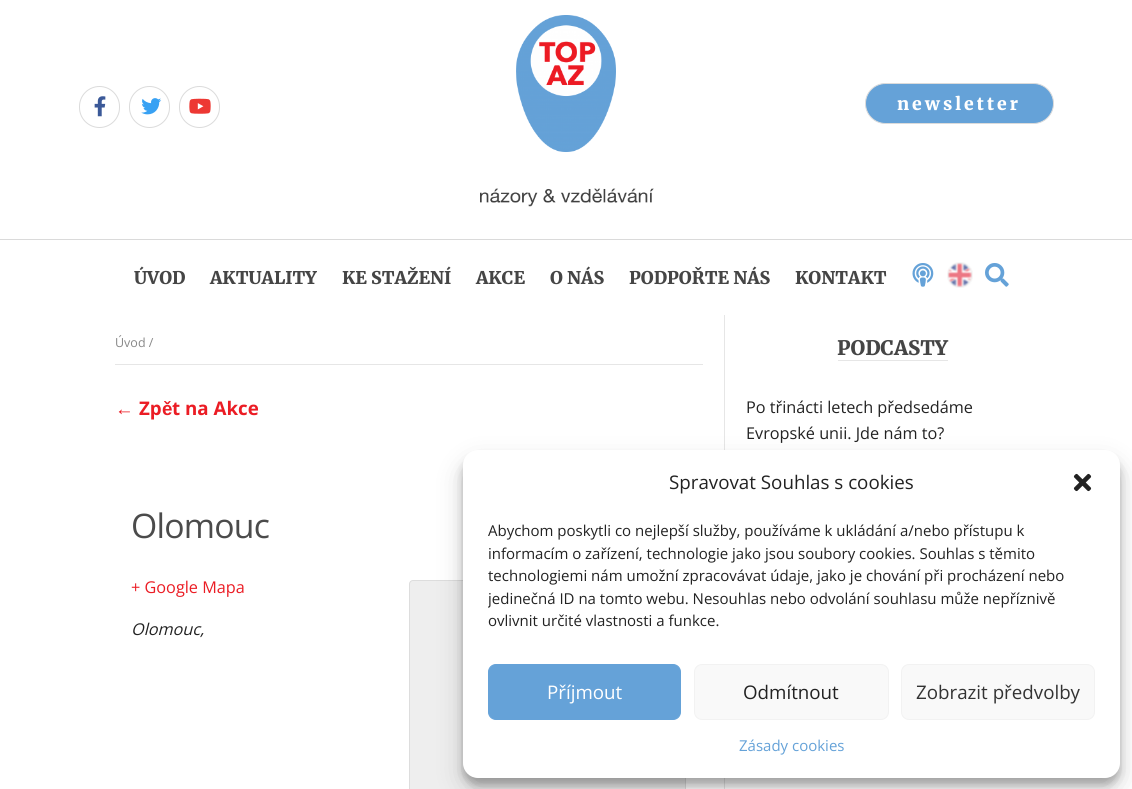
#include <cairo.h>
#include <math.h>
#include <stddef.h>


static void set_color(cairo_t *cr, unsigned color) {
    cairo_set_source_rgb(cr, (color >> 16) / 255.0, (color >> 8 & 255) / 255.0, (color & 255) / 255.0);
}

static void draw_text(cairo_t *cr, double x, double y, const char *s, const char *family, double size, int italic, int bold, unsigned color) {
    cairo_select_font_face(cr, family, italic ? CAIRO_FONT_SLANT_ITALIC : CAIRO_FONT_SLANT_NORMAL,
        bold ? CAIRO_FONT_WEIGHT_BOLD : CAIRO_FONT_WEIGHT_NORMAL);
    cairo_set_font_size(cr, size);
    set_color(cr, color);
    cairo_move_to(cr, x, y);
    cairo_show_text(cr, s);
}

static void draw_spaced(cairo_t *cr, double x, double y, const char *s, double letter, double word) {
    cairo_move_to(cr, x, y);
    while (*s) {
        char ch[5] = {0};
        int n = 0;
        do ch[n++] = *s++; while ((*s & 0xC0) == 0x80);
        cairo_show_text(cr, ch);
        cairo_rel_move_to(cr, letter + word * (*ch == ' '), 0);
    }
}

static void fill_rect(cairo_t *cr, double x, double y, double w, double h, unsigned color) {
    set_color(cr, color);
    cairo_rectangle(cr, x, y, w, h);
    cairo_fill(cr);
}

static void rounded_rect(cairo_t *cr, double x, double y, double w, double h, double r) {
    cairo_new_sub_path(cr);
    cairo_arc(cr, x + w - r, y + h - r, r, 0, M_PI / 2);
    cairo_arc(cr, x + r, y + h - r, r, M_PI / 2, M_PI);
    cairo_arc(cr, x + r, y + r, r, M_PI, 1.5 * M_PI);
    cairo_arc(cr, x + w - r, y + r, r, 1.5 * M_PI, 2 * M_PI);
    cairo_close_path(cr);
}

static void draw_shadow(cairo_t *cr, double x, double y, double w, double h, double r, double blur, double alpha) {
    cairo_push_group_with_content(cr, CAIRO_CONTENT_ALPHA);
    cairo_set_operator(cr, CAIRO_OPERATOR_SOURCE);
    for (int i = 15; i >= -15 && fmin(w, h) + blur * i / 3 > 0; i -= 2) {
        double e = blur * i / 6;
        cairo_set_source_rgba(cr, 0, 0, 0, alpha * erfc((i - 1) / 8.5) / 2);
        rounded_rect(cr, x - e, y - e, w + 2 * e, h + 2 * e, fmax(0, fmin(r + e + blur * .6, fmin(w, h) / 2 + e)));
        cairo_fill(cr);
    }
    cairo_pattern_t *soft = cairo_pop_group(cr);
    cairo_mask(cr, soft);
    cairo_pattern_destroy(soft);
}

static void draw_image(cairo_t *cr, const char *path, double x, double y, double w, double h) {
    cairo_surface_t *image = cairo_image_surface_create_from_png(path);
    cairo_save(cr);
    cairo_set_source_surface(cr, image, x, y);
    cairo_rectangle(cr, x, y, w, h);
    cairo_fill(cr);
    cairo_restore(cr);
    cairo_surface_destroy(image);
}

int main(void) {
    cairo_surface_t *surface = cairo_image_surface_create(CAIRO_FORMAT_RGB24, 1132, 789);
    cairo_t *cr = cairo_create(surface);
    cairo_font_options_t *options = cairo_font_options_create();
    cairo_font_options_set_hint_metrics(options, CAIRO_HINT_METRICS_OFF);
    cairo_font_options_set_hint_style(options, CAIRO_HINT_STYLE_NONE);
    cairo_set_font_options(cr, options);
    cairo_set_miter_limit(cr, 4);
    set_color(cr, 0xFFFFFF);
    cairo_paint(cr);
    rounded_rect(cr, 79.5, 86.5, 40, 41, 20);
    set_color(cr, 0xDBDBDB);
    cairo_set_line_width(cr, 1);
    cairo_stroke(cr);
    draw_image(cr, "assets/img1.png", 94, 96, 12, 21);
    rounded_rect(cr, 129.5, 86.5, 40, 41, 20);
    cairo_stroke(cr);
    draw_image(cr, "assets/img2.png", 141, 98, 21, 17);
    rounded_rect(cr, 179.5, 86.5, 40, 41, 20);
    cairo_stroke(cr);
    draw_image(cr, "assets/img3.png", 189, 98, 22, 16);
    draw_image(cr, "assets/img4.png", 480, 15, 174, 192);
    set_color(cr, 0x65A2D8);
    rounded_rect(cr, 865.5, 83.5, 188, 40, 20);
    cairo_fill_preserve(cr);
    set_color(cr, 0xDBDBDB);
    cairo_stroke(cr);
    cairo_select_font_face(cr, "Merriweather Light", CAIRO_FONT_SLANT_NORMAL, CAIRO_FONT_WEIGHT_NORMAL);
    cairo_set_font_size(cr, 17.5);
    set_color(cr, 0xFFFFFF);
    draw_spaced(cr, 897, 110, "newsletter", 3, 0);
    fill_rect(cr, 0, 239, 1132, 1, 0xDADADA);
    fill_rect(cr, 724, 314, 1, 475, 0xE6E6E6);
    fill_rect(cr, 724, 314, 1, 1, 0xFFFFFF);
    draw_text(cr, 134, 284, "ÚVOD", "Merriweather Light", 17.5, 0, 0, 0x454545);
    draw_text(cr, 210, 284, "AKTUALITY", "Merriweather Light", 17.5, 0, 0, 0x454545);
    draw_text(cr, 342, 284, "KE STAŽENÍ", "Merriweather Light", 17.5, 0, 0, 0x454545);
    draw_text(cr, 476, 284, "AKCE", "Merriweather Light", 17.5, 0, 0, 0x454545);
    draw_text(cr, 550, 284, "O NÁS", "Merriweather Light", 17.5, 0, 0, 0x454545);
    draw_text(cr, 629, 284, "PODPOŘTE NÁS", "Merriweather Light", 17.5, 0, 0, 0x454545);
    draw_text(cr, 795, 284, "KONTAKT", "Merriweather Light", 17.5, 0, 0, 0x454545);
    draw_image(cr, "assets/img5.png", 912, 263, 22, 24);
    draw_image(cr, "assets/img6.png", 947, 262, 26, 26);
    draw_image(cr, "assets/img7.png", 985, 263, 24, 24);
    fill_rect(cr, 115, 364, 588, 1, 0xE6E6E6);
    draw_text(cr, 115, 347, "Úvod /", "Open Sans", 12.5, 0, 0, 0x888888);
    draw_text(cr, 115, 415, "←", "Liberation Sans", 18.75, 0, 1, 0xEB1C24);
    draw_text(cr, 139, 415, "Zp", "Open Sans", 18.75, 0, 1, 0xEB1C24);
    draw_text(cr, 162, 415, "ě", "Liberation Sans", 18.75, 0, 1, 0xEB1C24);
    draw_text(cr, 172, 415, "t na Akce", "Open Sans", 18.75, 0, 1, 0xEB1C24);
    cairo_select_font_face(cr, "Open Sans", CAIRO_FONT_SLANT_NORMAL, CAIRO_FONT_WEIGHT_NORMAL);
    cairo_set_font_size(cr, 33.75);
    set_color(cr, 0x4B4B4B);
    draw_spaced(cr, 131, 538, "Olomouc", -0.75, 0);
    draw_text(cr, 131, 593, "+ Google Mapa", "Open Sans", 16.25, 0, 0, 0xEB1C24);
    draw_text(cr, 131, 635, "Olomouc,", "Open Sans", 16.25, 1, 0, 0x222222);
    set_color(cr, 0xEEEEEE);
    rounded_rect(cr, 409.5, 580.5, 276, 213, 3.5);
    cairo_fill_preserve(cr);
    set_color(cr, 0xDDDDDD);
    cairo_stroke(cr);
    draw_text(cr, 837, 355, "PODCASTY", "Merriweather Light", 20, 0, 0, 0x454545);
    fill_rect(cr, 838, 360, 110, 1, 0xE6E6E6);
    draw_text(cr, 746, 413, "Po třinácti letech předsedáme", "Open Sans", 16.25, 0, 0, 0x222222);
    draw_text(cr, 746, 439, "Evropské unii. Jde nám to?", "Open Sans", 16.25, 0, 0, 0x222222);
    set_color(cr, 0x000000);
    draw_shadow(cr, 463, 458, 657, 327, 15, 4, 0.23);
    draw_shadow(cr, 463, 463, 657, 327, 15, 12.5, 0.19);
    set_color(cr, 0xFFFFFF);
    rounded_rect(cr, 463, 450, 657, 328, 15);
    cairo_fill(cr);
    draw_text(cr, 669, 489, "Spravovat Souhlas s cookies", "Open Sans", 18.75, 0, 0, 0x222222);
    draw_image(cr, "assets/img8.png", 1073, 473, 19, 19);
    draw_text(cr, 488, 536, "Abychom poskytli co nejlepší služby, používáme k ukládání a/nebo přístupu k", "Open Sans", 15, 0, 0, 0x222222);
    draw_text(cr, 488, 559, "informacím o zařízení, technologie jako jsou soubory cookies. Souhlas s těmito", "Open Sans", 15, 0, 0, 0x222222);
    draw_text(cr, 488, 581, "technologiemi nám umožní zpracovávat údaje, jako je chování při procházení nebo", "Open Sans", 15, 0, 0, 0x222222);
    cairo_save(cr);
    cairo_rectangle(cr, 488, 520, 607, 119);
    cairo_clip(cr);
    draw_text(cr, 488, 604, "jedinečná ID na tomto webu. Nesouhlas nebo odvolání souhlasu může nepříznivě", "Open Sans", 15, 0, 0, 0x222222);
    cairo_restore(cr);
    draw_text(cr, 488, 626, "ovlivnit určité vlastnosti a funkce.", "Open Sans", 15, 0, 0, 0x222222);
    set_color(cr, 0x65A2D8);
    rounded_rect(cr, 488.5, 664.5, 192, 55, 7.5);
    cairo_fill_preserve(cr);
    cairo_stroke(cr);
    draw_text(cr, 547, 699, "Příjmout", "Open Sans", 18.75, 0, 0, 0xFFFFFF);
    set_color(cr, 0xF9F9F9);
    rounded_rect(cr, 694.5, 664.5, 194, 55, 7.5);
    cairo_fill_preserve(cr);
    set_color(cr, 0xF2F2F2);
    cairo_stroke(cr);
    draw_text(cr, 743, 699, "Odmítnout", "Open Sans", 18.75, 0, 0, 0x222222);
    set_color(cr, 0xF9F9F9);
    rounded_rect(cr, 901.5, 664.5, 193, 55, 7.5);
    cairo_fill_preserve(cr);
    set_color(cr, 0xF2F2F2);
    cairo_stroke(cr);
    draw_text(cr, 916, 699, "Zobrazit předvolby", "Open Sans", 18.75, 0, 0, 0x333333);
    draw_text(cr, 739, 751, "Zásady cookies", "Open Sans", 15, 0, 0, 0x65A2D8);
    cairo_surface_write_to_png(surface, "output.png");
    cairo_font_options_destroy(options);
    cairo_destroy(cr);
    cairo_surface_destroy(surface);
    return 0;
}
